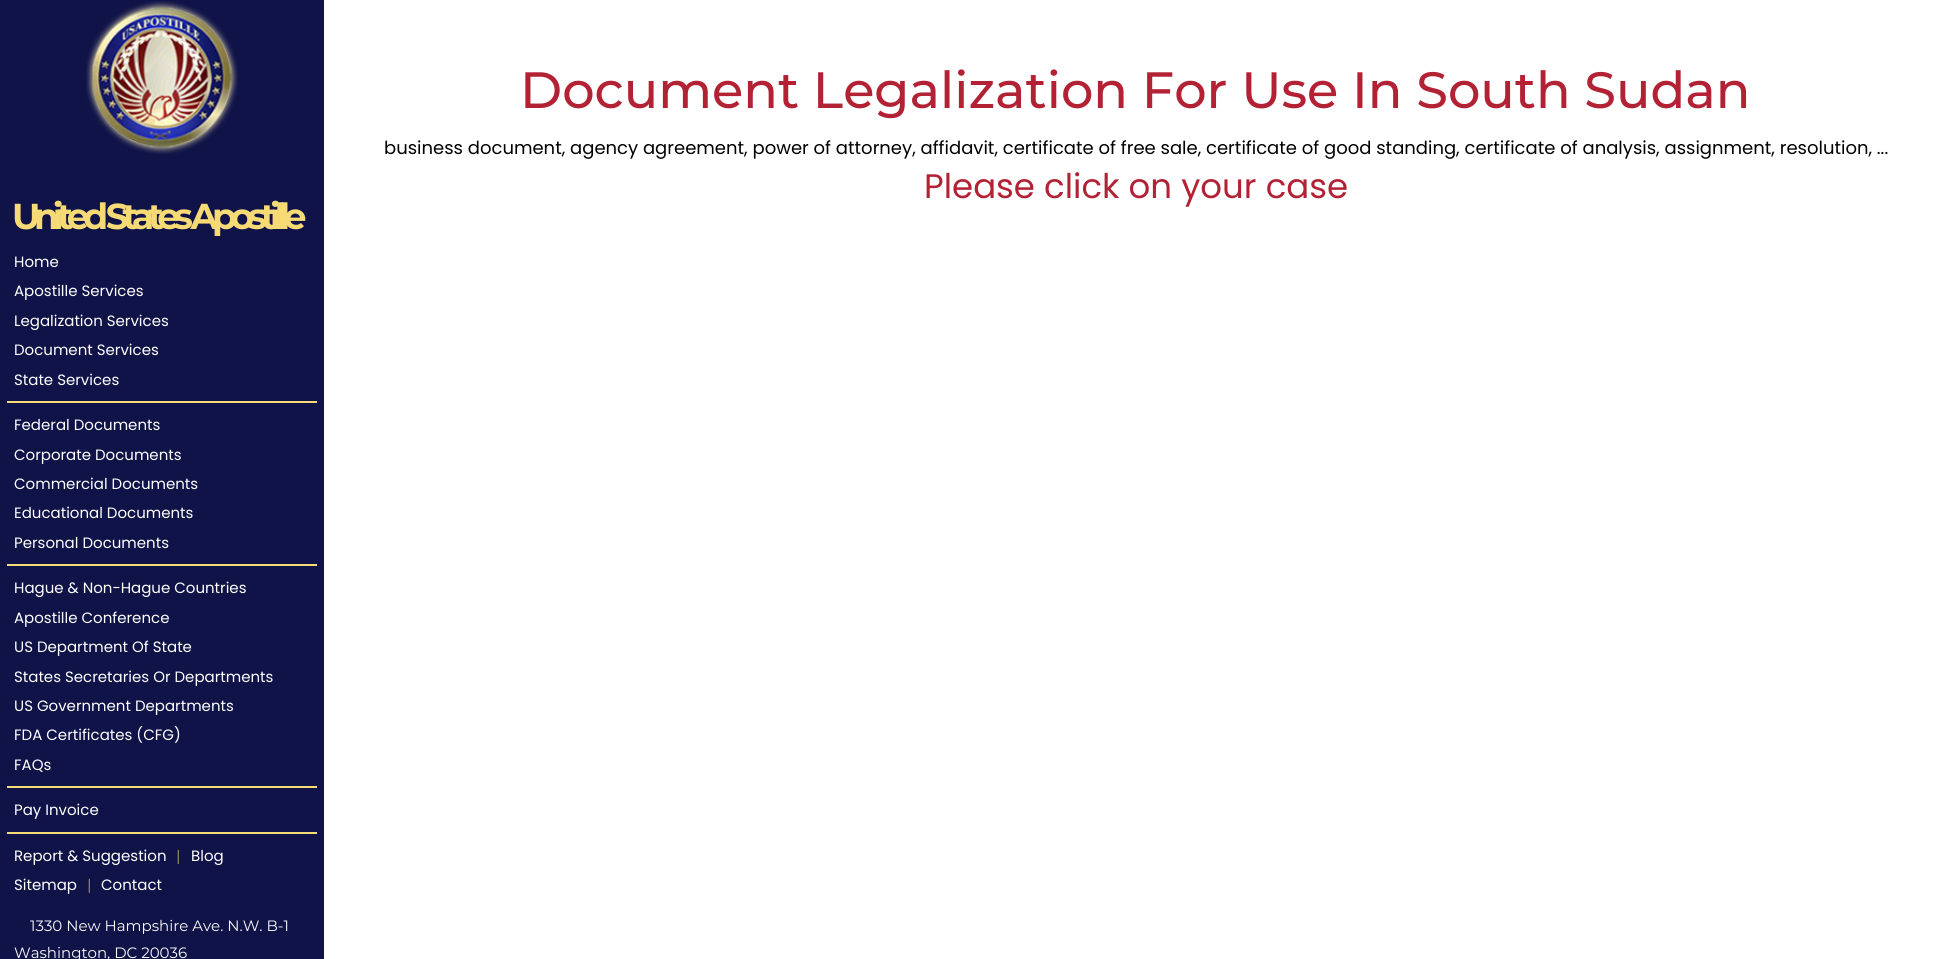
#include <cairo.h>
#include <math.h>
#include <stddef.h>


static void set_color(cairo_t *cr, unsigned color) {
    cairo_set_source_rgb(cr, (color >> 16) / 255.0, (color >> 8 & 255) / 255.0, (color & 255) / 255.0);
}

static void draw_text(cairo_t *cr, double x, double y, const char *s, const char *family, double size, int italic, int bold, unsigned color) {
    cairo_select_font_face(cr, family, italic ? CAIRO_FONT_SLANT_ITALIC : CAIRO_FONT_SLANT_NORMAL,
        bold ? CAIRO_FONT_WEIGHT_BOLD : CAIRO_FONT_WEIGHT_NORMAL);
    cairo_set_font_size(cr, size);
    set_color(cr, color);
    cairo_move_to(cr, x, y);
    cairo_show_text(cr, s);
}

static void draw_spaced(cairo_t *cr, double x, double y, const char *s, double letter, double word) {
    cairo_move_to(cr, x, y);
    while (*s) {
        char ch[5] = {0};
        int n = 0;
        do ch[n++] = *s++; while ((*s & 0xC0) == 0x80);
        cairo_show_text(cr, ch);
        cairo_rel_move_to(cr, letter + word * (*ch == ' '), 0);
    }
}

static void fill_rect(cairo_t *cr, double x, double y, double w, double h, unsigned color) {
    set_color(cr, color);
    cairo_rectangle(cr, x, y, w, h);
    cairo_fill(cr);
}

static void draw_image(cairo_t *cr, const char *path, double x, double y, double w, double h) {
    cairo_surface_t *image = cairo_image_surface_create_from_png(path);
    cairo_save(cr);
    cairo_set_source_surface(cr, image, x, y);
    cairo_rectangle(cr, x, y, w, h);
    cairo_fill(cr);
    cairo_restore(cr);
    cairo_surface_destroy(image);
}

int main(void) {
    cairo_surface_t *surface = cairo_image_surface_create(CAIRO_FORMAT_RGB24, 1947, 959);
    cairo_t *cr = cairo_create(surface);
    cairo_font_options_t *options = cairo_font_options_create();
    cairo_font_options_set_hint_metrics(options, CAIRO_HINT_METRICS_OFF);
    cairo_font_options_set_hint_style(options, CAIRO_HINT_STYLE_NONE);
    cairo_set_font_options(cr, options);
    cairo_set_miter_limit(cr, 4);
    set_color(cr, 0xFFFFFF);
    cairo_paint(cr);
    draw_text(cr, 520, 108, "Document Legalization For Use In South Sudan", "Montserrat Medium", 51, 0, 0, 0xB32134);
    draw_text(cr, 384, 154, "business document, agency agreement, power of attorney, affidavit, certificate of free sale, certificate of good standing, certificate of analysis, assignment, resolution, ...", "Poppins", 18, 0, 0, 0x000000);
    draw_text(cr, 924, 198, "Please click on your case", "Poppins", 34, 0, 0, 0xB32134);
    fill_rect(cr, 0, 0, 324, 959, 0x101348);
    draw_image(cr, "assets/img1.png", 86, 1, 152, 153);
    cairo_select_font_face(cr, "Montserrat", CAIRO_FONT_SLANT_NORMAL, CAIRO_FONT_WEIGHT_BOLD);
    cairo_set_font_size(cr, 36);
    set_color(cr, 0xF5DA75);
    draw_spaced(cr, 12, 229, "United States Apostille", -6.25, 0);
    draw_text(cr, 14, 267, "Home", "Poppins", 15, 0, 0, 0xFFFFFF);
    draw_text(cr, 14, 296, "Apostille Services", "Poppins", 15, 0, 0, 0xFFFFFF);
    draw_text(cr, 14, 326, "Legalization Services", "Poppins", 15, 0, 0, 0xFFFFFF);
    draw_text(cr, 14, 355, "Document Services", "Poppins", 15, 0, 0, 0xFFFFFF);
    draw_text(cr, 14, 385, "State Services", "Poppins", 15, 0, 0, 0xFFFFFF);
    fill_rect(cr, 7, 401, 310, 2, 0xF5DA75);
    draw_text(cr, 14, 430, "Federal Documents", "Poppins", 15, 0, 0, 0xFFFFFF);
    draw_text(cr, 14, 460, "Corporate Documents", "Poppins", 15, 0, 0, 0xFFFFFF);
    draw_text(cr, 14, 489, "Commercial Documents", "Poppins", 15, 0, 0, 0xFFFFFF);
    draw_text(cr, 14, 518, "Educational Documents", "Poppins", 15, 0, 0, 0xFFFFFF);
    draw_text(cr, 14, 548, "Personal Documents", "Poppins", 15, 0, 0, 0xFFFFFF);
    fill_rect(cr, 7, 564, 310, 2, 0xF5DA75);
    draw_text(cr, 14, 593, "Hague & Non-Hague Countries", "Poppins", 15, 0, 0, 0xFFFFFF);
    draw_text(cr, 14, 623, "Apostille Conference", "Poppins", 15, 0, 0, 0xFFFFFF);
    draw_text(cr, 14, 652, "US Department Of State", "Poppins", 15, 0, 0, 0xFFFFFF);
    draw_text(cr, 14, 682, "States Secretaries Or Departments", "Poppins", 15, 0, 0, 0xFFFFFF);
    draw_text(cr, 14, 711, "US Government Departments", "Poppins", 15, 0, 0, 0xFFFFFF);
    draw_text(cr, 14, 740, "FDA Certificates (CFG)", "Poppins", 15, 0, 0, 0xFFFFFF);
    draw_text(cr, 14, 770, "FAQs", "Poppins", 15, 0, 0, 0xFFFFFF);
    fill_rect(cr, 7, 786, 310, 2, 0xF5DA75);
    draw_text(cr, 14, 815, "Pay Invoice", "Poppins", 15, 0, 0, 0xFFFFFF);
    fill_rect(cr, 7, 832, 310, 2, 0xF5DA75);
    draw_text(cr, 14, 861, "Report & Suggestion", "Poppins", 15, 0, 0, 0xFFFFFF);
    draw_text(cr, 176, 861, "|", "Montserrat Light", 15, 0, 0, 0xF5DA75);
    draw_text(cr, 191, 861, "Blog", "Poppins", 15, 0, 0, 0xFFFFFF);
    draw_text(cr, 14, 890, "Sitemap", "Poppins", 15, 0, 0, 0xFFFFFF);
    draw_text(cr, 87, 890, "|", "Montserrat Light", 15, 0, 0, 0xF5DA75);
    draw_text(cr, 101, 890, "Contact", "Poppins", 15, 0, 0, 0xFFFFFF);
    draw_text(cr, 30, 931, "1330 New Hampshire Ave. N.W. B-1", "Montserrat", 15, 0, 0, 0xF9F9F9);
    draw_text(cr, 14, 958, "Washington, DC 20036", "Montserrat", 15, 0, 0, 0xF9F9F9);
    cairo_surface_write_to_png(surface, "output.png");
    cairo_font_options_destroy(options);
    cairo_destroy(cr);
    cairo_surface_destroy(surface);
    return 0;
}
